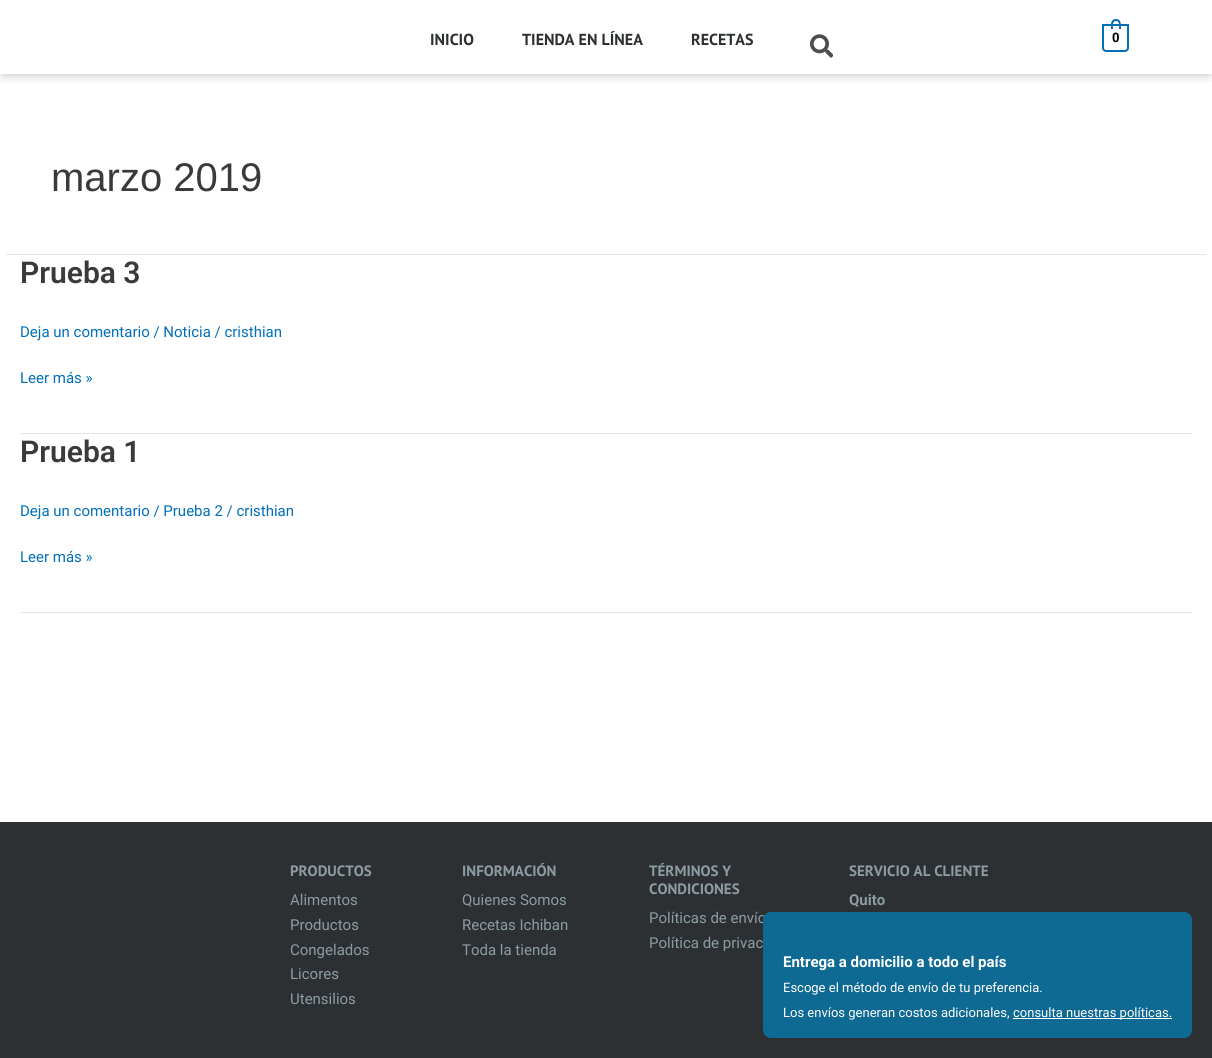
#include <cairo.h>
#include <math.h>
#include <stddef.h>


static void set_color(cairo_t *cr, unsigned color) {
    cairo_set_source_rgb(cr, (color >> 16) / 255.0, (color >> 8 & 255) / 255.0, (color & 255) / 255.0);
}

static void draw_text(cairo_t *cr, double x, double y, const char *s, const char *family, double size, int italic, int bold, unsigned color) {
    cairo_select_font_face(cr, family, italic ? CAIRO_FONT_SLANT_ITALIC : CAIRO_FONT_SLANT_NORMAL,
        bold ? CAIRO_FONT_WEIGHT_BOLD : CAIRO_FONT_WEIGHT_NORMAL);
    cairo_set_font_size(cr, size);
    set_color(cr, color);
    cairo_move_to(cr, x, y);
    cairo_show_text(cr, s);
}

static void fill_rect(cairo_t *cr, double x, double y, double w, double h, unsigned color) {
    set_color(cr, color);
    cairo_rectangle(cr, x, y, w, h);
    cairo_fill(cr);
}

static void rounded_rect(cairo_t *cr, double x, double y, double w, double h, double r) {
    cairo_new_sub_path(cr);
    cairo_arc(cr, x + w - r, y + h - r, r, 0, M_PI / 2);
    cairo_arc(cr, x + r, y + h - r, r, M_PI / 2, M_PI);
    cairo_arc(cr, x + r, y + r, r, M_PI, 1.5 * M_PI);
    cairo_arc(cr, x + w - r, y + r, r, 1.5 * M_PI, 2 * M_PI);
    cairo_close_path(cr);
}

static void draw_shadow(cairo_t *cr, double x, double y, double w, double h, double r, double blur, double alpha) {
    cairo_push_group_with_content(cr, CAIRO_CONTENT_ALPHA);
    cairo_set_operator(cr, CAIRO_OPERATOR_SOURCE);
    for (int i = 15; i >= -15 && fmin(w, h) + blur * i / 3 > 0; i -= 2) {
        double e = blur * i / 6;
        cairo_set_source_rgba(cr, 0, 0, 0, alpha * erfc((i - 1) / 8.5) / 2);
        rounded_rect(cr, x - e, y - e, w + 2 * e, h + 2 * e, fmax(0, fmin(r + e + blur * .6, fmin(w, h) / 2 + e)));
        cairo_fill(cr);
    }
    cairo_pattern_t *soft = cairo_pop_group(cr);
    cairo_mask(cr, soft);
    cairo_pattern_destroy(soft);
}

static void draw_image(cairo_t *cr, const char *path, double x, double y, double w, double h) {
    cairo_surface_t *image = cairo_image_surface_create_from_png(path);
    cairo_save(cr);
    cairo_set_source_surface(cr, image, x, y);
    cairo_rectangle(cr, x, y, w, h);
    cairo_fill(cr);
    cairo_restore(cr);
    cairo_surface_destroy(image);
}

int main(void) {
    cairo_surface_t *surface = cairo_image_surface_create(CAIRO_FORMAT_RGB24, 1212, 1058);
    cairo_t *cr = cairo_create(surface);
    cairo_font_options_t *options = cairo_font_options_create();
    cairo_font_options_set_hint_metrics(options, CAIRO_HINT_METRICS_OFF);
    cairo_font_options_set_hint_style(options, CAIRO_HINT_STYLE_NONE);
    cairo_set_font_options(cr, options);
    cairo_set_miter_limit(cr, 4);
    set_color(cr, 0xFFFFFF);
    cairo_paint(cr);
    cairo_save(cr);
    cairo_rectangle(cr, 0, 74, 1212, 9);
    cairo_clip(cr);
    set_color(cr, 0x000000);
    draw_shadow(cr, 3, 6, 1206, 68, 0, 6, 0.26);
    cairo_restore(cr);
    draw_text(cr, 430, 45, "INICIO", "PT Sans", 16, 0, 1, 0x2C3033);
    draw_text(cr, 522, 45, "TIENDA EN LÍNEA", "PT Sans", 16, 0, 1, 0x2C3033);
    draw_text(cr, 691, 45, "RECETAS", "PT Sans", 16, 0, 1, 0x2C3033);
    draw_image(cr, "assets/img1.png", 810, 34, 23, 24);
    cairo_new_path(cr);
    cairo_move_to(cr, 1103, 25);
    cairo_line_to(cr, 1128, 25);
    cairo_line_to(cr, 1128, 48);
    cairo_curve_to(cr, 1128, 49.5, 1126.5, 51, 1125, 51);
    cairo_line_to(cr, 1106, 51);
    cairo_curve_to(cr, 1104.5, 51, 1103, 49.5, 1103, 48);
    cairo_close_path(cr);
    set_color(cr, 0x0170B9);
    cairo_stroke(cr);
    cairo_set_fill_rule(cr, CAIRO_FILL_RULE_EVEN_ODD);
    cairo_new_path(cr);
    cairo_move_to(cr, 1116, 19);
    cairo_curve_to(cr, 1121.5, 19, 1121, 25, 1121, 29);
    cairo_line_to(cr, 1111, 29);
    cairo_curve_to(cr, 1111, 25, 1110, 19, 1116, 19);
    cairo_close_path(cr);
    cairo_move_to(cr, 1116, 21);
    cairo_curve_to(cr, 1120, 21, 1119, 26.5, 1119, 29);
    cairo_line_to(cr, 1113, 29);
    cairo_curve_to(cr, 1113, 26.5, 1112, 21, 1116, 21);
    cairo_close_path(cr);
    cairo_fill(cr);
    draw_text(cr, 1112, 42, "0", "Roboto", 13, 0, 1, 0x000000);
    fill_rect(cr, 6, 254, 1200, 1, 0xE5E5E5);
    draw_text(cr, 51, 191, "marzo 2019", "Liberation Sans", 40, 0, 0, 0x3A3A3A);
    fill_rect(cr, 20, 433, 1172, 1, 0xE5E5E5);
    draw_text(cr, 20, 283, "Prueba 3", "Roboto SemiBold", 30, 0, 0, 0x3A3A3A);
    draw_text(cr, 20, 337, "Deja un comentario / Noticia / cristhian", "Roboto", 15, 0, 0, 0x0170B9);
    draw_text(cr, 20, 383, "Leer más »", "Roboto", 15, 0, 0, 0x0170B9);
    fill_rect(cr, 20, 612, 1172, 1, 0xE5E5E5);
    draw_text(cr, 20, 462, "Prueba 1", "Roboto SemiBold", 30, 0, 0, 0x3A3A3A);
    draw_text(cr, 20, 516, "Deja un comentario / Prueba 2 / cristhian", "Roboto", 15, 0, 0, 0x0170B9);
    draw_text(cr, 20, 562, "Leer más »", "Roboto", 15, 0, 0, 0x0170B9);
    fill_rect(cr, 0, 822, 1212, 236, 0x2C3033);
    draw_text(cr, 290, 876, "PRODUCTOS", "PT Sans", 15, 0, 1, 0x8D9CA3);
    draw_text(cr, 290, 905, "Alimentos", "Roboto", 15, 0, 0, 0x8D9CA3);
    draw_text(cr, 290, 930, "Productos", "Roboto", 15, 0, 0, 0x8D9CA3);
    draw_text(cr, 290, 955, "Congelados", "Roboto", 15, 0, 0, 0x8D9CA3);
    draw_text(cr, 290, 979, "Licores", "Roboto", 15, 0, 0, 0x8D9CA3);
    draw_text(cr, 290, 1004, "Utensilios", "Roboto", 15, 0, 0, 0x8D9CA3);
    draw_text(cr, 462, 876, "INFORMACIÓN", "PT Sans", 15, 0, 1, 0x8D9CA3);
    draw_text(cr, 462, 905, "Quienes Somos", "Roboto", 15, 0, 0, 0x8D9CA3);
    draw_text(cr, 462, 930, "Recetas Ichiban", "Roboto", 15, 0, 0, 0x8D9CA3);
    draw_text(cr, 462, 955, "Toda la tienda", "Roboto", 15, 0, 0, 0x8D9CA3);
    draw_text(cr, 649, 876, "TÉRMINOS Y", "PT Sans", 15, 0, 1, 0x8D9CA3);
    draw_text(cr, 649, 894, "CONDICIONES", "PT Sans", 15, 0, 1, 0x8D9CA3);
    draw_text(cr, 649, 923, "Políticas de envío", "Roboto", 15, 0, 0, 0x8D9CA3);
    draw_text(cr, 649, 948, "Política de privac", "Roboto", 15, 0, 0, 0x8D9CA3);
    draw_text(cr, 849, 876, "SERVICIO AL CLIENTE", "PT Sans", 15, 0, 1, 0x8D9CA3);
    draw_text(cr, 849, 905, "Quito", "Roboto", 15, 0, 1, 0x8D9CA3);
    set_color(cr, 0x0E6993);
    rounded_rect(cr, 763, 912, 429, 126, 8);
    cairo_fill(cr);
    draw_text(cr, 783, 967, "Entrega a domicilio a todo el país", "Roboto", 15, 0, 1, 0xFFFFFF);
    draw_text(cr, 783, 992, "Escoge el método de envío de tu preferencia.", "Roboto", 13, 0, 0, 0xFFFFFF);
    draw_text(cr, 783, 1017, "Los envíos generan costos adicionales,", "Roboto", 13, 0, 0, 0xFFFFFF);
    fill_rect(cr, 1013, 1018, 159, 1, 0xFFFFFF);
    draw_text(cr, 1013, 1017, "consulta nuestras políticas.", "Roboto", 13, 0, 0, 0xFFFFFF);
    cairo_surface_write_to_png(surface, "output.png");
    cairo_font_options_destroy(options);
    cairo_destroy(cr);
    cairo_surface_destroy(surface);
    return 0;
}
